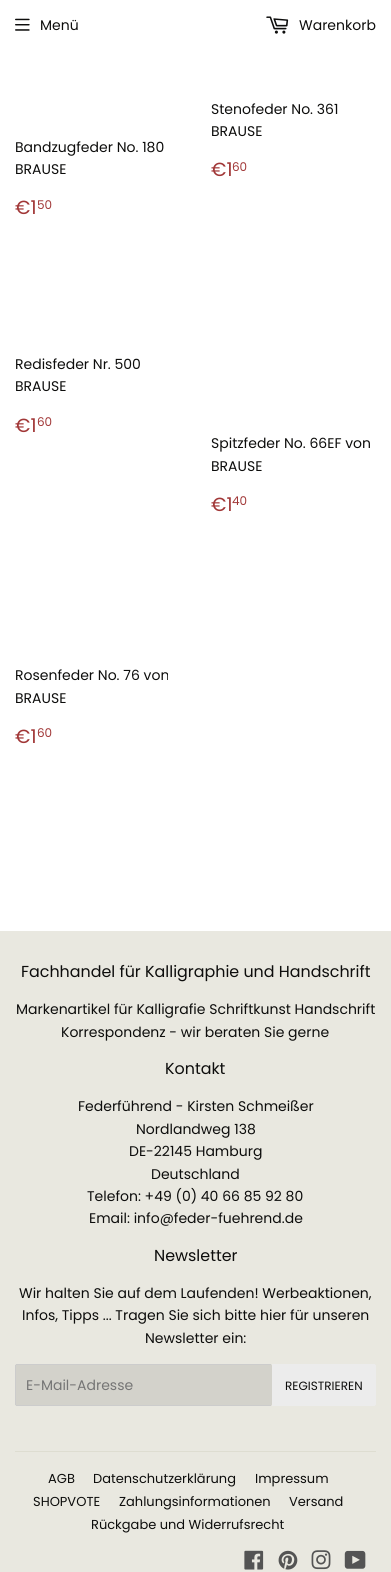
#include <cairo.h>
#include <math.h>
#include <stddef.h>


static void set_color(cairo_t *cr, unsigned color) {
    cairo_set_source_rgb(cr, (color >> 16) / 255.0, (color >> 8 & 255) / 255.0, (color & 255) / 255.0);
}

static void draw_text(cairo_t *cr, double x, double y, const char *s, const char *family, double size, int italic, int bold, unsigned color) {
    cairo_select_font_face(cr, family, italic ? CAIRO_FONT_SLANT_ITALIC : CAIRO_FONT_SLANT_NORMAL,
        bold ? CAIRO_FONT_WEIGHT_BOLD : CAIRO_FONT_WEIGHT_NORMAL);
    cairo_set_font_size(cr, size);
    set_color(cr, color);
    cairo_move_to(cr, x, y);
    cairo_show_text(cr, s);
}

static void fill_rect(cairo_t *cr, double x, double y, double w, double h, unsigned color) {
    set_color(cr, color);
    cairo_rectangle(cr, x, y, w, h);
    cairo_fill(cr);
}

static void rounded_rect(cairo_t *cr, double x, double y, double w, double h, double r) {
    cairo_new_sub_path(cr);
    cairo_arc(cr, x + w - r, y + h - r, r, 0, M_PI / 2);
    cairo_arc(cr, x + r, y + h - r, r, M_PI / 2, M_PI);
    cairo_arc(cr, x + r, y + r, r, M_PI, 1.5 * M_PI);
    cairo_arc(cr, x + w - r, y + r, r, 1.5 * M_PI, 2 * M_PI);
    cairo_close_path(cr);
}

static void draw_image(cairo_t *cr, const char *path, double x, double y, double w, double h) {
    cairo_surface_t *image = cairo_image_surface_create_from_png(path);
    cairo_save(cr);
    cairo_set_source_surface(cr, image, x, y);
    cairo_rectangle(cr, x, y, w, h);
    cairo_fill(cr);
    cairo_restore(cr);
    cairo_surface_destroy(image);
}

int main(void) {
    cairo_surface_t *surface = cairo_image_surface_create(CAIRO_FORMAT_RGB24, 391, 1572);
    cairo_t *cr = cairo_create(surface);
    cairo_font_options_t *options = cairo_font_options_create();
    cairo_font_options_set_hint_metrics(options, CAIRO_HINT_METRICS_OFF);
    cairo_font_options_set_hint_style(options, CAIRO_HINT_STYLE_NONE);
    cairo_set_font_options(cr, options);
    cairo_set_miter_limit(cr, 4);
    set_color(cr, 0xFFFFFF);
    cairo_paint(cr);
    draw_image(cr, "assets/img1.png", 15, 18, 15, 13);
    draw_text(cr, 40, 30, "Menü", "Poppins", 14, 0, 0, 0x0D0D0C);
    draw_image(cr, "assets/img2.png", 266, 16, 23, 18);
    draw_text(cr, 299, 30, "Warenkorb", "Poppins", 14, 0, 0, 0x0D0D0C);
    draw_text(cr, 15, 152, "Bandzugfeder No. 180", "Poppins", 14, 0, 0, 0x0D0D0C);
    draw_text(cr, 15, 174, "BRAUSE", "Poppins", 14, 0, 0, 0x0D0D0C);
    draw_text(cr, 15, 214, "€1", "Poppins", 19, 0, 0, 0xA13737);
    draw_text(cr, 37, 209, "50", "Poppins", 12, 0, 0, 0xA13737);
    draw_text(cr, 211, 114, "Stenofeder No. 361", "Poppins", 14, 0, 0, 0x0D0D0C);
    draw_text(cr, 211, 136, "BRAUSE", "Poppins", 14, 0, 0, 0x0D0D0C);
    draw_text(cr, 211, 176, "€1", "Poppins", 19, 0, 0, 0xA13737);
    draw_text(cr, 232, 171, "60", "Poppins", 12, 0, 0, 0xA13737);
    draw_text(cr, 15, 369, "Redisfeder Nr. 500", "Poppins", 14, 0, 0, 0x0D0D0C);
    draw_text(cr, 15, 391, "BRAUSE", "Poppins", 14, 0, 0, 0x0D0D0C);
    draw_text(cr, 15, 432, "€1", "Poppins", 19, 0, 0, 0xA13737);
    draw_text(cr, 37, 426, "60", "Poppins", 12, 0, 0, 0xA13737);
    draw_text(cr, 211, 448, "Spitzfeder No. 66EF von", "Poppins", 14, 0, 0, 0x0D0D0C);
    draw_text(cr, 211, 471, "BRAUSE", "Poppins", 14, 0, 0, 0x0D0D0C);
    draw_text(cr, 211, 511, "€1", "Poppins", 19, 0, 0, 0xA13737);
    draw_text(cr, 232, 505, "40", "Poppins", 12, 0, 0, 0xA13737);
    draw_text(cr, 15, 680, "Rosenfeder No. 76 von", "Poppins", 14, 0, 0, 0x0D0D0C);
    draw_text(cr, 15, 703, "BRAUSE", "Poppins", 14, 0, 0, 0x0D0D0C);
    draw_text(cr, 15, 743, "€1", "Poppins", 19, 0, 0, 0xA13737);
    draw_text(cr, 37, 737, "60", "Poppins", 12, 0, 0, 0xA13737);
    fill_rect(cr, 0, 931, 391, 641, 0xE9E8E0);
    draw_text(cr, 21, 977, "Fachhandel für Kalligraphie und Handschrift", "Poppins", 15.9, 0, 0, 0x0D0D0C);
    draw_text(cr, 16, 1014, "Markenartikel für Kalligrafie Schriftkunst Handschrift", "Poppins", 14, 0, 0, 0x0D0D0C);
    draw_text(cr, 61, 1037, "Korrespondenz - wir beraten Sie gerne", "Poppins", 14, 0, 0, 0x0D0D0C);
    draw_text(cr, 165, 1074, "Kontakt", "Poppins", 15.9, 0, 0, 0x0D0D0C);
    draw_text(cr, 78, 1111, "Federführend - Kirsten Schmeißer", "Poppins", 14, 0, 0, 0x0D0D0C);
    draw_text(cr, 136, 1134, "Nordlandweg 138", "Poppins", 14, 0, 0, 0x0D0D0C);
    draw_text(cr, 129, 1156, "DE-22145 Hamburg", "Poppins", 14, 0, 0, 0x0D0D0C);
    draw_text(cr, 151, 1179, "Deutschland", "Poppins", 14, 0, 0, 0x0D0D0C);
    draw_text(cr, 87, 1201, "Telefon: +49 (0) 40 66 85 92 80", "Poppins", 14, 0, 0, 0x0D0D0C);
    draw_text(cr, 89, 1223, "Email: info@feder-fuehrend.de", "Poppins", 14, 0, 0, 0x0D0D0C);
    draw_text(cr, 154, 1261, "Newsletter", "Poppins", 15.9, 0, 0, 0x0D0D0C);
    draw_text(cr, 19, 1298, "Wir halten Sie auf dem Laufenden! Werbeaktionen,", "Poppins", 14, 0, 0, 0x0D0D0C);
    draw_text(cr, 22, 1320, "Infos, Tipps ... Tragen Sie sich bitte hier für unseren", "Poppins", 14, 0, 0, 0x0D0D0C);
    draw_text(cr, 145, 1343, "Newsletter ein:", "Poppins", 14, 0, 0, 0x0D0D0C);
    set_color(cr, 0xD3D2CB);
    rounded_rect(cr, 15, 1364, 257, 42, 2);
    cairo_fill(cr);
    fill_rect(cr, 16, 1364, 255, 1, 0xCCCCCC);
    fill_rect(cr, 16, 1405, 255, 1, 0xCCCCCC);
    fill_rect(cr, 15, 1365, 1, 40, 0xCCCCCC);
    draw_text(cr, 26, 1390, "E-Mail-Adresse", "Poppins", 14, 0, 0, 0x757575);
    set_color(cr, 0xECECEC);
    cairo_new_path(cr);
    cairo_move_to(cr, 272, 1364);
    cairo_line_to(cr, 374, 1364);
    cairo_curve_to(cr, 375, 1364, 376, 1365, 376, 1366);
    cairo_line_to(cr, 376, 1404);
    cairo_curve_to(cr, 376, 1405, 375, 1406, 374, 1406);
    cairo_line_to(cr, 272, 1406);
    cairo_close_path(cr);
    cairo_fill(cr);
    draw_text(cr, 285, 1390, "REGISTRIEREN", "Poppins", 12, 0, 0, 0x0D0D0C);
    fill_rect(cr, 15, 1451, 361, 1, 0xDEDDD1);
    draw_text(cr, 48, 1483, "AGB", "Poppins", 13, 0, 0, 0x0D0D0C);
    draw_text(cr, 93, 1483, "Datenschutzerklärung", "Poppins", 13, 0, 0, 0x0D0D0C);
    draw_text(cr, 255, 1483, "Impressum", "Poppins", 13, 0, 0, 0x0D0D0C);
    draw_text(cr, 33, 1506, "SHOPVOTE", "Poppins", 13, 0, 0, 0x0D0D0C);
    draw_text(cr, 119, 1506, "Zahlungsinformationen", "Poppins", 13, 0, 0, 0x0D0D0C);
    draw_text(cr, 289, 1506, "Versand", "Poppins", 13, 0, 0, 0x0D0D0C);
    draw_text(cr, 91, 1529, "Rückgabe und Widerrufsrecht", "Poppins", 13, 0, 0, 0x0D0D0C);
    draw_image(cr, "assets/img3.png", 244, 1550, 20, 20);
    draw_image(cr, "assets/img4.png", 278, 1550, 20, 20);
    draw_image(cr, "assets/img5.png", 311, 1550, 20, 20);
    draw_image(cr, "assets/img6.png", 344, 1550, 22, 19);
    cairo_surface_write_to_png(surface, "output.png");
    cairo_font_options_destroy(options);
    cairo_destroy(cr);
    cairo_surface_destroy(surface);
    return 0;
}
